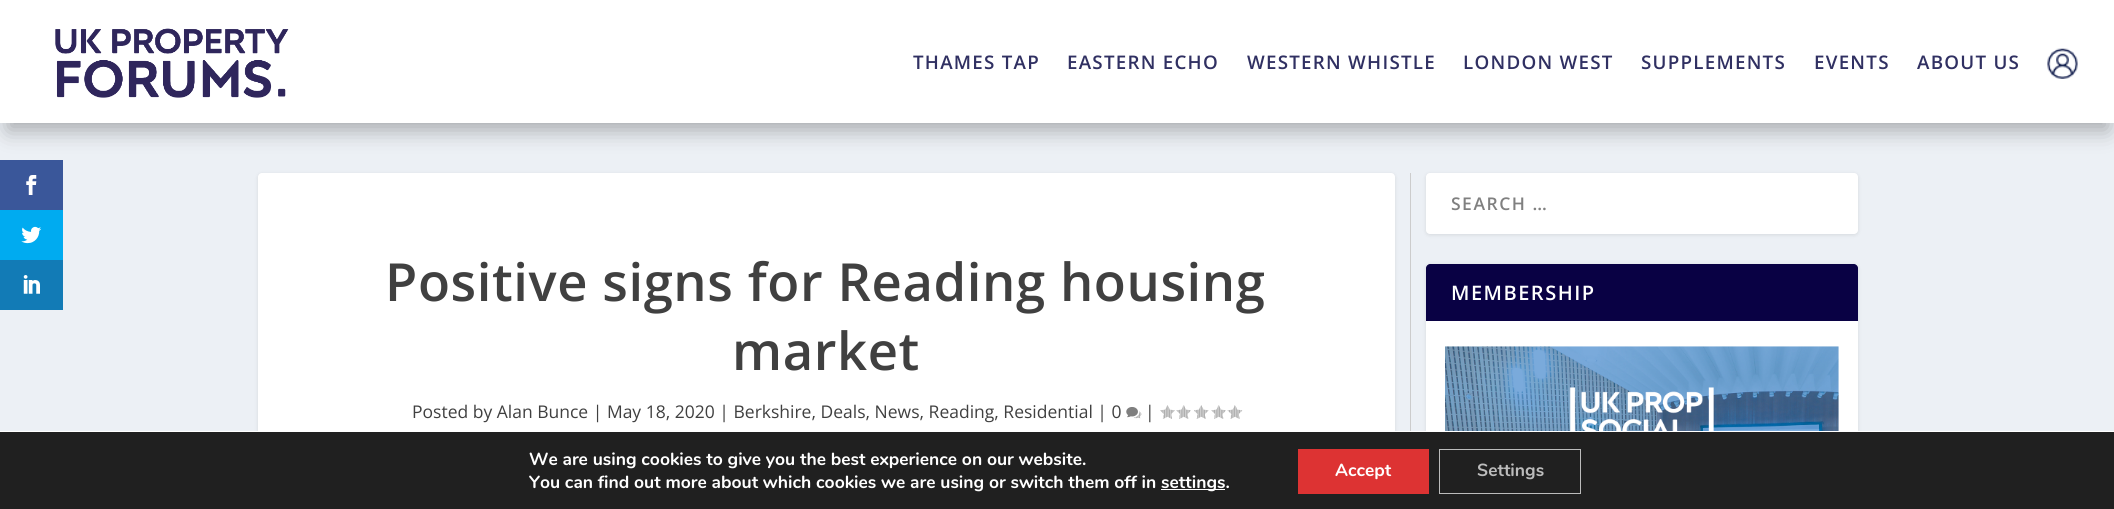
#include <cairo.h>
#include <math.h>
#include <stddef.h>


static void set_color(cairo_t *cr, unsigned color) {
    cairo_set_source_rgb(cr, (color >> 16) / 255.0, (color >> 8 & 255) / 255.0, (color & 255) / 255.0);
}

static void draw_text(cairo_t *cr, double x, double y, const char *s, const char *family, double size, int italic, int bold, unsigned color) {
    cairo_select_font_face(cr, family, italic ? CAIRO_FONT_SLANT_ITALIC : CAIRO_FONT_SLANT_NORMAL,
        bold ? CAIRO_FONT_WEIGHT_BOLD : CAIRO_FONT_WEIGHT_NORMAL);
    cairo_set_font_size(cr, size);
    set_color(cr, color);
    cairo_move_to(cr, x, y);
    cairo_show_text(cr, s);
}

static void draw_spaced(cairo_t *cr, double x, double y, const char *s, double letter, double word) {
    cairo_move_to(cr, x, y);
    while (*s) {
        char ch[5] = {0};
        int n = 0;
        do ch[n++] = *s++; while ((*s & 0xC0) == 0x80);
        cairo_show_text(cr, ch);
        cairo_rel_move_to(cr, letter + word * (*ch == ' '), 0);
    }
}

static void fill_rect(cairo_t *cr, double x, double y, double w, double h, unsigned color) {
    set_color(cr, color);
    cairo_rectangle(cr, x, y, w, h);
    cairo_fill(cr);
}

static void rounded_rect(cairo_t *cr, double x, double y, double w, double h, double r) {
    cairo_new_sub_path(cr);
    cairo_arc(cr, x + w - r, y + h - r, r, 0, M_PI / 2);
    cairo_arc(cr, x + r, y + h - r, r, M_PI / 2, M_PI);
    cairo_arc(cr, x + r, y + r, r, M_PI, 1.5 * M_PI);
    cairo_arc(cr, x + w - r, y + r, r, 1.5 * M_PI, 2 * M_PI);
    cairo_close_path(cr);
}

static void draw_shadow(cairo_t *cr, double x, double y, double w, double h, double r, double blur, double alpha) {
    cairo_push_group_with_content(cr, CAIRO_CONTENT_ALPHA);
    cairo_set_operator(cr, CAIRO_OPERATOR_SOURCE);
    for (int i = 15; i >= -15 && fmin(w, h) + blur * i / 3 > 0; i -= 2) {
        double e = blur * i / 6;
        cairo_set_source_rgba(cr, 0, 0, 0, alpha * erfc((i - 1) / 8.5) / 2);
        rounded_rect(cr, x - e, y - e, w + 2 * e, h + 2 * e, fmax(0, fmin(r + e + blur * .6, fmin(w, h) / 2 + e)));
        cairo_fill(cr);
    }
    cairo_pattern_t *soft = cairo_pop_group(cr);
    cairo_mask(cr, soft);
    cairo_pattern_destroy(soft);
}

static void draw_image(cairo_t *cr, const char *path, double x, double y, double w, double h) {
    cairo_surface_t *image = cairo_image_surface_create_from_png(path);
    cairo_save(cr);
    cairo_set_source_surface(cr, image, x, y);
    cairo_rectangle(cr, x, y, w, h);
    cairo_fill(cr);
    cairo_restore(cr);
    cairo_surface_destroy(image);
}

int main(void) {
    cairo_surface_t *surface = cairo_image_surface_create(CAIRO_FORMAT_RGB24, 2114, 509);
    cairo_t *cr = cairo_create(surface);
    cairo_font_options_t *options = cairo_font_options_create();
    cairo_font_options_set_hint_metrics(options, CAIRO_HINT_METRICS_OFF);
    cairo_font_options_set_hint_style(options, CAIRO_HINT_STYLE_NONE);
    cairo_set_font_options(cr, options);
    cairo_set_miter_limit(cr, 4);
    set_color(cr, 0xECF0F5);
    cairo_paint(cr);
    set_color(cr, 0x000000);
    draw_shadow(cr, 8, 23, 2100, 107, 0, 11, 0.3);
    fill_rect(cr, 0, 160, 63, 50, 0x3A579A);
    draw_image(cr, "assets/img1.png", 26, 175, 11, 20);
    fill_rect(cr, 0, 210, 63, 50, 0x00ABF0);
    draw_image(cr, "assets/img2.png", 21, 226, 21, 18);
    fill_rect(cr, 0, 260, 63, 50, 0x127BB6);
    draw_image(cr, "assets/img3.png", 23, 275, 17, 19);
    fill_rect(cr, 0, 0, 2114, 123, 0xFFFFFF);
    draw_image(cr, "assets/img4.png", 55, 28, 234, 70);
    cairo_select_font_face(cr, "Open Sans SemiBold", CAIRO_FONT_SLANT_NORMAL, CAIRO_FONT_WEIGHT_NORMAL);
    cairo_set_font_size(cr, 18.75);
    set_color(cr, 0x303062);
    draw_spaced(cr, 913, 69, "THAMES TAP", 1.25, 0);
    draw_spaced(cr, 1067, 69, "EASTERN ECHO", 1.25, 0);
    draw_spaced(cr, 1247, 69, "WESTERN WHISTLE", 1.25, 0);
    draw_spaced(cr, 1463, 69, "LONDON WEST", 1.25, 0);
    draw_spaced(cr, 1641, 69, "SUPPLEMENTS", 1.25, 0);
    draw_spaced(cr, 1814, 69, "EVENTS", 1.25, 0);
    draw_spaced(cr, 1917, 69, "ABOUT US", 1.25, 0);
    draw_image(cr, "assets/img5.png", 2047, 48, 31, 31);
    fill_rect(cr, 1410, 173, 1, 258, 0xCCCCCC);
    set_color(cr, 0x000000);
    draw_shadow(cr, 1426, 174, 432, 61, 4, 2, 0.1);
    set_color(cr, 0xFFFFFF);
    rounded_rect(cr, 1426, 173, 432, 61, 4);
    cairo_fill(cr);
    cairo_set_font_size(cr, 17.5);
    set_color(cr, 0x808080);
    draw_spaced(cr, 1451, 210, "SEARCH …", 1.5, 0);
    set_color(cr, 0x000000);
    draw_shadow(cr, 1426, 265, 432, 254, 4, 2, 0.1);
    set_color(cr, 0xFFFFFF);
    rounded_rect(cr, 1426, 264, 432, 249, 4);
    cairo_fill(cr);
    set_color(cr, 0x090144);
    cairo_new_path(cr);
    cairo_move_to(cr, 1430, 264);
    cairo_line_to(cr, 1854, 264);
    cairo_curve_to(cr, 1856, 264, 1858, 266, 1858, 268);
    cairo_line_to(cr, 1858, 321);
    cairo_line_to(cr, 1426, 321);
    cairo_line_to(cr, 1426, 268);
    cairo_curve_to(cr, 1426, 266, 1428, 264, 1430, 264);
    cairo_close_path(cr);
    cairo_fill(cr);
    cairo_set_font_size(cr, 20);
    set_color(cr, 0xFFFFFF);
    draw_spaced(cr, 1451, 300, "MEMBERSHIP", 1.5, 0);
    draw_image(cr, "assets/img6.png", 1445, 346, 394, 85);
    set_color(cr, 0x000000);
    draw_shadow(cr, 258, 174, 1137, 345, 4, 2, 0.1);
    set_color(cr, 0xFFFFFF);
    rounded_rect(cr, 258, 173, 1137, 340, 4);
    cairo_fill(cr);
    cairo_set_font_size(cr, 52.5);
    set_color(cr, 0x404040);
    draw_spaced(cr, 385, 301, "Positive signs for Reading housing", 0.6, 0);
    draw_spaced(cr, 732, 370, "market", 0.6, 0);
    draw_text(cr, 412, 418, "Posted by Alan Bunce | May 18, 2020 | Berkshire, Deals, News, Reading, Residential | 0", "Open Sans", 17.5, 0, 0, 0x404040);
    draw_image(cr, "assets/img7.png", 1126, 407, 16, 12);
    draw_text(cr, 1145, 418, "|", "Open Sans", 17.5, 0, 0, 0x404040);
    draw_image(cr, "assets/img8.png", 1160, 405, 15, 14);
    draw_image(cr, "assets/img9.png", 1176, 405, 15, 14);
    draw_image(cr, "assets/img10.png", 1194, 405, 15, 14);
    draw_image(cr, "assets/img9.png", 1211, 405, 15, 14);
    draw_image(cr, "assets/img11.png", 1227, 405, 16, 14);
    fill_rect(cr, 0, 432, 2114, 77, 0x202020);
    fill_rect(cr, 0, 431, 2114, 1, 0xFFFFFF);
    draw_text(cr, 529, 465, "We are using cookies to give you the best experience on our website.", "Nunito", 17.5, 0, 1, 0xFFFFFF);
    draw_text(cr, 529, 488, "You can find out more about which cookies we are using or switch them off in", "Nunito", 17.5, 0, 1, 0xFFFFFF);
    fill_rect(cr, 1161, 489, 64, 1, 0xFFFFFF);
    draw_text(cr, 1161, 488, "settings.", "Nunito", 17.5, 0, 1, 0xFFFFFF);
    fill_rect(cr, 1298, 449, 131, 45, 0xDD3333);
    draw_text(cr, 1335, 476, "Accept", "Nunito", 17.5, 0, 1, 0xFFFFFF);
    cairo_rectangle(cr, 1439.5, 449.5, 141, 44);
    set_color(cr, 0xBCBCBC);
    cairo_set_line_width(cr, 1);
    cairo_stroke(cr);
    draw_text(cr, 1477, 476, "Settings", "Nunito", 17.5, 0, 1, 0xBCBCBC);
    cairo_surface_write_to_png(surface, "output.png");
    cairo_font_options_destroy(options);
    cairo_destroy(cr);
    cairo_surface_destroy(surface);
    return 0;
}
